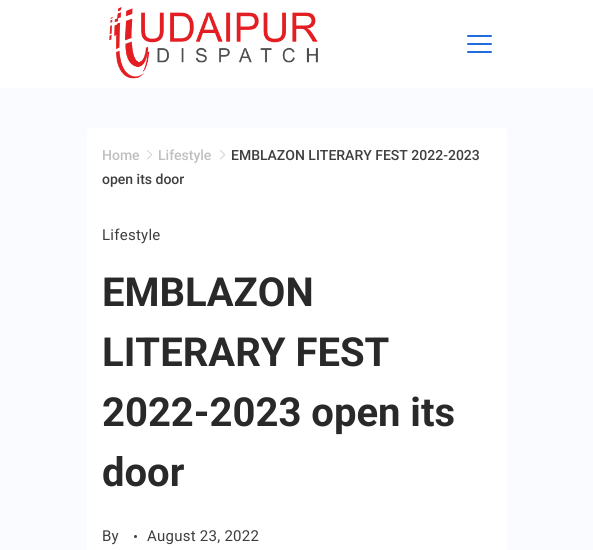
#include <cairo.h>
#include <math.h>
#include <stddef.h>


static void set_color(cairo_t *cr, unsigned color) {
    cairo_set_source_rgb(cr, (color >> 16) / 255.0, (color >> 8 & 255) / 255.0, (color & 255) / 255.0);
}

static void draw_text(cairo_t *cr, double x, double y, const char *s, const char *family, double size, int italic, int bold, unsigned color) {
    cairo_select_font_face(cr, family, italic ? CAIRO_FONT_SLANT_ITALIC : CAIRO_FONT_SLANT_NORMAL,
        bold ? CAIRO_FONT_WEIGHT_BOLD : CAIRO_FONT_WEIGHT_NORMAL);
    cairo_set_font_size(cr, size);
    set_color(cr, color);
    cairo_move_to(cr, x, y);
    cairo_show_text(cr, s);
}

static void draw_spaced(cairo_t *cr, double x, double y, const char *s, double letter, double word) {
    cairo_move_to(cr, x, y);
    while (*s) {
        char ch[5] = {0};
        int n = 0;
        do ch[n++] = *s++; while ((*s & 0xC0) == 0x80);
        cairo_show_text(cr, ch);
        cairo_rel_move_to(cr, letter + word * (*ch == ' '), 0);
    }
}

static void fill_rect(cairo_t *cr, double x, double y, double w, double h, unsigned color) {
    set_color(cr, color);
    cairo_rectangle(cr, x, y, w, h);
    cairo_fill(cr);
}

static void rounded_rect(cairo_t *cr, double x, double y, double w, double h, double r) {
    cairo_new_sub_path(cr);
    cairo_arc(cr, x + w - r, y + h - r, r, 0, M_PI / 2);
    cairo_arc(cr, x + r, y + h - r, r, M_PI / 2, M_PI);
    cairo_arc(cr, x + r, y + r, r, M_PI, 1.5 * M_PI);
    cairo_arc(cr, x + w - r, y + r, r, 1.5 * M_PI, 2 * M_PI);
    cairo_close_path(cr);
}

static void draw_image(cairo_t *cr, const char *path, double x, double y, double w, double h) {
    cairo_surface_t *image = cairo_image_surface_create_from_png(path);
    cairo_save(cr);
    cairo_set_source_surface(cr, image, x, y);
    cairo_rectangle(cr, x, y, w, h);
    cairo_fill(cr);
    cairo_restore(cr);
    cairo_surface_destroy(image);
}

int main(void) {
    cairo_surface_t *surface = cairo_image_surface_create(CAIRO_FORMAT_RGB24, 593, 550);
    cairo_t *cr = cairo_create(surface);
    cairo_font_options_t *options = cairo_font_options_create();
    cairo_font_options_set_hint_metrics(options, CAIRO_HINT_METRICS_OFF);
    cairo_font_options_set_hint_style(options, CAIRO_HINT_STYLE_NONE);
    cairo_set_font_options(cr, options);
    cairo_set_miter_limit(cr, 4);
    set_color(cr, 0xF9FBFE);
    cairo_paint(cr);
    fill_rect(cr, 0, 0, 593, 88, 0xFFFFFF);
    draw_image(cr, "assets/img1.png", 109, 7, 209, 72);
    set_color(cr, 0x216BDB);
    rounded_rect(cr, 467, 43, 25, 2, 1);
    cairo_fill(cr);
    rounded_rect(cr, 467, 35, 25, 2, 1);
    cairo_fill(cr);
    rounded_rect(cr, 467, 51, 25, 2, 1);
    cairo_fill(cr);
    set_color(cr, 0xFFFFFF);
    rounded_rect(cr, 87, 128, 420, 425, 3);
    cairo_fill(cr);
    draw_text(cr, 102, 160, "Home", "Roboto Medium", 14, 0, 0, 0xBFBFBF);
    draw_image(cr, "assets/img2.png", 147, 150, 5, 10);
    draw_text(cr, 158, 160, "Lifestyle", "Roboto Medium", 14, 0, 0, 0xBFBFBF);
    draw_image(cr, "assets/img2.png", 220, 150, 5, 10);
    draw_text(cr, 231, 160, "EMBLAZON LITERARY FEST 2022-2023", "Roboto Medium", 14, 0, 0, 0x3E3E3E);
    draw_text(cr, 102, 184, "open its door", "Roboto Medium", 14, 0, 0, 0x3E3E3E);
    cairo_select_font_face(cr, "Roboto", CAIRO_FONT_SLANT_NORMAL, CAIRO_FONT_WEIGHT_NORMAL);
    cairo_set_font_size(cr, 15);
    draw_spaced(cr, 102, 240, "Lifestyle", 0.25, 0);
    draw_text(cr, 102, 306, "EMBLAZON", "Roboto", 40, 0, 1, 0x292929);
    draw_text(cr, 102, 366, "LITERARY FEST", "Roboto", 40, 0, 1, 0x292929);
    draw_text(cr, 102, 426, "2022-2023 open its", "Roboto", 40, 0, 1, 0x292929);
    draw_text(cr, 102, 486, "door", "Roboto", 40, 0, 1, 0x292929);
    cairo_select_font_face(cr, "Roboto", CAIRO_FONT_SLANT_NORMAL, CAIRO_FONT_WEIGHT_NORMAL);
    cairo_set_font_size(cr, 15);
    set_color(cr, 0x3E3E3E);
    draw_spaced(cr, 102, 541, "By", 0.25, 0);
    cairo_new_path(cr);
    cairo_arc(cr, 135.5, 536.5, 1.5, 0, 2 * M_PI);
    cairo_fill(cr);
    draw_spaced(cr, 147, 541, "August 23, 2022", 0.25, 0);
    cairo_surface_write_to_png(surface, "output.png");
    cairo_font_options_destroy(options);
    cairo_destroy(cr);
    cairo_surface_destroy(surface);
    return 0;
}
